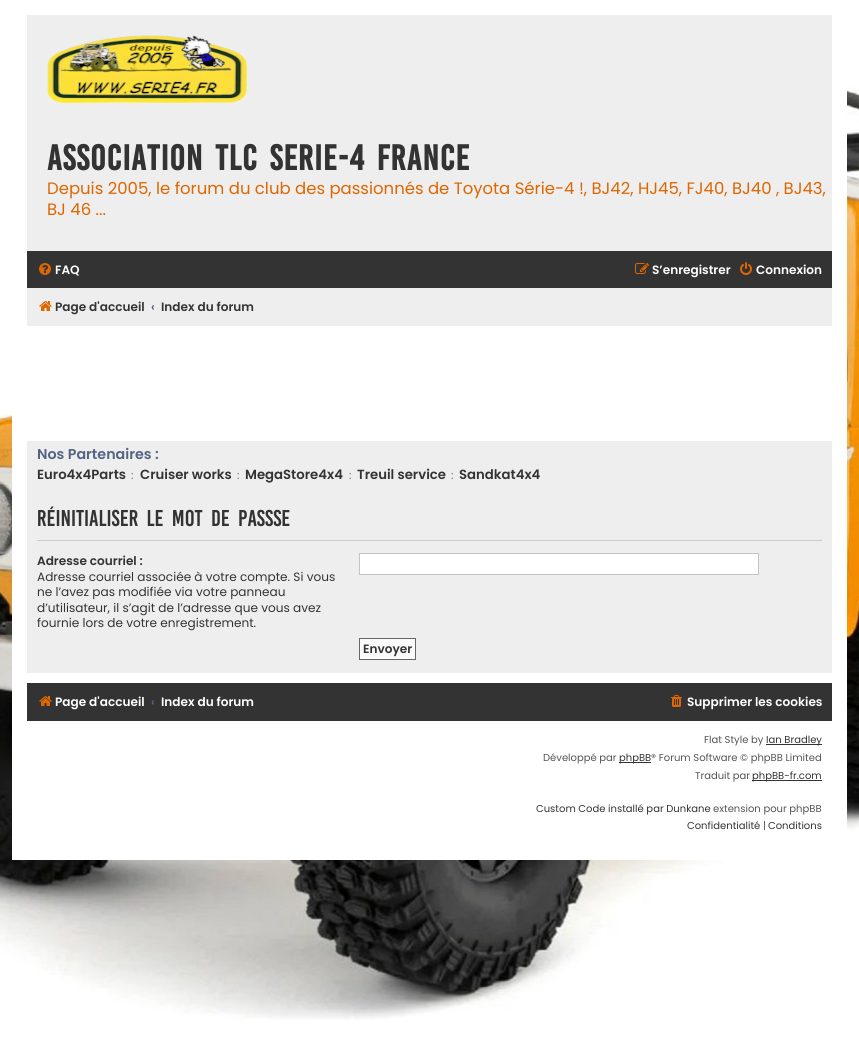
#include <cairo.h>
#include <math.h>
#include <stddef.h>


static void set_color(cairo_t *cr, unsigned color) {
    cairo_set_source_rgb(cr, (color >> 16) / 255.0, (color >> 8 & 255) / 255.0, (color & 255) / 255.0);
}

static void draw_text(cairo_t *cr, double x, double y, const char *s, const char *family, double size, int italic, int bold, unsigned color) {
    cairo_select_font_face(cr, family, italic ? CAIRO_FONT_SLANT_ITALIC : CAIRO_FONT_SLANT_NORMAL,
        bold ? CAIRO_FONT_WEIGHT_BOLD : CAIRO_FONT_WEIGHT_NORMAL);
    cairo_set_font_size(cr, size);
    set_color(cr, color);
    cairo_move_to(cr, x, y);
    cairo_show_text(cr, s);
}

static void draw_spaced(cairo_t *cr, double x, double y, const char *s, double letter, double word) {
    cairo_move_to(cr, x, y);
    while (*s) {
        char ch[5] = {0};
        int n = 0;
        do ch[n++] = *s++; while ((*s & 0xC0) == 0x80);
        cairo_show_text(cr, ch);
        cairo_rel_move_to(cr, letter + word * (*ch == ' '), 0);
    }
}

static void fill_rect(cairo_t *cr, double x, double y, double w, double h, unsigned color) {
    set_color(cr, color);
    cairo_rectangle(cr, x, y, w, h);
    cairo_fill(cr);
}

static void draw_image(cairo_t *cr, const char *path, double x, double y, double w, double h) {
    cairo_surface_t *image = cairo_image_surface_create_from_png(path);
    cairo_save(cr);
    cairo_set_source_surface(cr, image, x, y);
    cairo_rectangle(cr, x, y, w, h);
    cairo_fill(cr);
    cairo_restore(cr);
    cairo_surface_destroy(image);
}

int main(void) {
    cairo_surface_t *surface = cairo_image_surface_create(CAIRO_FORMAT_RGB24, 859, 1060);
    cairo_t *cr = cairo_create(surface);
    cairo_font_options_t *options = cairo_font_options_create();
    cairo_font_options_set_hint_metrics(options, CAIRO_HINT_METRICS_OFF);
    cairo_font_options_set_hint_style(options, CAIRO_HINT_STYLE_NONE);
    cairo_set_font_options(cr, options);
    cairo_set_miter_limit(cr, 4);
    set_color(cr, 0xFFFFFF);
    cairo_paint(cr);
    draw_image(cr, "assets/img1.png", 0, 44, 859, 976);
    draw_image(cr, "assets/img2.png", 858, 94, 1, 727);
    fill_rect(cr, 12, 44, 835, 816, 0xFFFFFF);
    fill_rect(cr, 27, 15, 805, 236, 0xEEEEEE);
    draw_image(cr, "assets/img3.png", 47, 35, 200, 68);
    cairo_select_font_face(cr, "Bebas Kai", CAIRO_FONT_SLANT_NORMAL, CAIRO_FONT_WEIGHT_BOLD);
    cairo_set_font_size(cr, 27.5);
    set_color(cr, 0x333333);
    draw_spaced(cr, 47, 170, "ASSOCIATION TLC SERIE-4 FRANCE", 1, 4);
    draw_text(cr, 47, 194, "Depuis 2005, le forum du club des passionnés de Toyota Série-4 !, BJ42, HJ45, FJ40, BJ40 , BJ43,", "Poppins", 16.5, 0, 0, 0xDD6600);
    draw_text(cr, 47, 215, "BJ 46 ...", "Poppins", 16.5, 0, 0, 0xDD6600);
    fill_rect(cr, 27, 251, 805, 37, 0x333333);
    draw_image(cr, "assets/img4.png", 39, 263, 12, 12);
    draw_text(cr, 55, 274, "FAQ", "Poppins SemiBold", 12.1, 0, 0, 0xFFFFFF);
    draw_image(cr, "assets/img5.png", 635, 263, 14, 11);
    draw_text(cr, 652, 274, "S’enregistrer", "Poppins SemiBold", 12.1, 0, 0, 0xFFFFFF);
    draw_image(cr, "assets/img6.png", 740, 262, 12, 13);
    draw_text(cr, 756, 274, "Connexion", "Poppins SemiBold", 12.1, 0, 0, 0xFFFFFF);
    fill_rect(cr, 27, 288, 805, 38, 0xEEEEEE);
    draw_image(cr, "assets/img7.png", 39, 301, 13, 10);
    draw_text(cr, 55, 311, "Page d'accueil", "Poppins SemiBold", 12.1, 0, 0, 0x333333);
    draw_text(cr, 151, 311, "‹", "Poppins SemiBold", 12.1, 0, 0, 0x536482);
    draw_text(cr, 161, 311, "Index du forum", "Poppins SemiBold", 12.1, 0, 0, 0x333333);
    fill_rect(cr, 27, 441, 805, 232, 0xEEEEEE);
    draw_text(cr, 37, 459, "Nos Partenaires :", "Poppins SemiBold", 14.25, 0, 0, 0x536482);
    draw_text(cr, 37, 479, "Euro4x4Parts", "Poppins SemiBold", 13.25, 0, 0, 0x333333);
    draw_text(cr, 131, 479, ":", "Poppins", 11, 0, 0, 0x536482);
    draw_text(cr, 140, 479, "Cruiser works", "Poppins SemiBold", 13.25, 0, 0, 0x333333);
    draw_text(cr, 237, 479, ":", "Poppins", 11, 0, 0, 0x536482);
    draw_text(cr, 245, 479, "MegaStore4x4", "Poppins SemiBold", 13.25, 0, 0, 0x333333);
    draw_text(cr, 349, 479, ":", "Poppins", 11, 0, 0, 0x536482);
    draw_text(cr, 357, 479, "Treuil service", "Poppins SemiBold", 13.25, 0, 0, 0x333333);
    draw_text(cr, 451, 479, ":", "Poppins", 11, 0, 0, 0x536482);
    draw_text(cr, 459, 479, "Sandkat4x4", "Poppins SemiBold", 13.25, 0, 0, 0x333333);
    fill_rect(cr, 37, 540, 785, 1, 0xCCCCCC);
    cairo_select_font_face(cr, "Bebas Kai", CAIRO_FONT_SLANT_NORMAL, CAIRO_FONT_WEIGHT_NORMAL);
    cairo_set_font_size(cr, 17.6);
    set_color(cr, 0x333333);
    draw_spaced(cr, 37, 526, "Réinitialiser le mot de passse", 0, 4);
    draw_text(cr, 37, 565, "Adresse courriel :", "Poppins SemiBold", 12.1, 0, 0, 0x333333);
    draw_text(cr, 37, 581, "Adresse courriel associée à votre compte. Si vous", "Poppins", 12.1, 0, 0, 0x333333);
    draw_text(cr, 37, 596, "ne l’avez pas modifiée via votre panneau", "Poppins", 12.1, 0, 0, 0x333333);
    draw_text(cr, 37, 612, "d’utilisateur, il s’agit de l’adresse que vous avez", "Poppins", 12.1, 0, 0, 0x333333);
    draw_text(cr, 37, 627, "fournie lors de votre enregistrement.", "Poppins", 12.1, 0, 0, 0x333333);
    set_color(cr, 0xFFFFFF);
    cairo_rectangle(cr, 359.5, 553.5, 399, 21);
    cairo_fill_preserve(cr);
    set_color(cr, 0xC7C3BF);
    cairo_set_line_width(cr, 1);
    cairo_stroke(cr);
    set_color(cr, 0xFAFAFA);
    cairo_rectangle(cr, 359.5, 638.5, 56, 21);
    cairo_fill_preserve(cr);
    set_color(cr, 0x666666);
    cairo_stroke(cr);
    draw_text(cr, 363, 653, "Envoyer", "Poppins SemiBold", 12.1, 0, 0, 0x333333);
    fill_rect(cr, 27, 683, 805, 38, 0x333333);
    draw_image(cr, "assets/img8.png", 39, 696, 13, 10);
    draw_text(cr, 55, 706, "Page d'accueil", "Poppins SemiBold", 12.1, 0, 0, 0xFFFFFF);
    draw_text(cr, 151, 706, "‹", "Poppins SemiBold", 12.1, 0, 0, 0x536482);
    draw_text(cr, 161, 706, "Index du forum", "Poppins SemiBold", 12.1, 0, 0, 0xFFFFFF);
    draw_image(cr, "assets/img9.png", 671, 695, 11, 12);
    draw_text(cr, 687, 706, "Supprimer les cookies", "Poppins SemiBold", 12.1, 0, 0, 0xFFFFFF);
    draw_text(cr, 704, 743, "Flat Style by", "Poppins", 10, 0, 0, 0x555555);
    fill_rect(cr, 766, 744, 56, 1, 0x333333);
    draw_text(cr, 766, 743, "Ian Bradley", "Poppins", 10, 0, 0, 0x333333);
    draw_text(cr, 543, 761, "Développé par", "Poppins", 10, 0, 0, 0x555555);
    fill_rect(cr, 619, 762, 32, 1, 0x333333);
    draw_text(cr, 619, 761, "phpBB", "Poppins", 10, 0, 0, 0x333333);
    draw_text(cr, 651, 761, "® Forum Software © phpBB Limited", "Poppins", 10, 0, 0, 0x555555);
    draw_text(cr, 695, 779, "Traduit par", "Poppins", 10, 0, 0, 0x555555);
    fill_rect(cr, 752, 780, 70, 1, 0x333333);
    draw_text(cr, 752, 779, "phpBB-fr.com", "Poppins", 10, 0, 0, 0x333333);
    draw_text(cr, 536, 812, "Custom Code installé par Dunkane", "Poppins", 10, 0, 0, 0x333333);
    draw_text(cr, 713, 812, "extension pour phpBB", "Poppins", 10, 0, 0, 0x555555);
    draw_text(cr, 687, 829, "Confidentialité", "Poppins", 10, 0, 0, 0x333333);
    draw_text(cr, 763, 829, "|", "Poppins", 10, 0, 0, 0x555555);
    draw_text(cr, 768, 829, "Conditions", "Poppins", 10, 0, 0, 0x333333);
    cairo_surface_write_to_png(surface, "output.png");
    cairo_font_options_destroy(options);
    cairo_destroy(cr);
    cairo_surface_destroy(surface);
    return 0;
}
